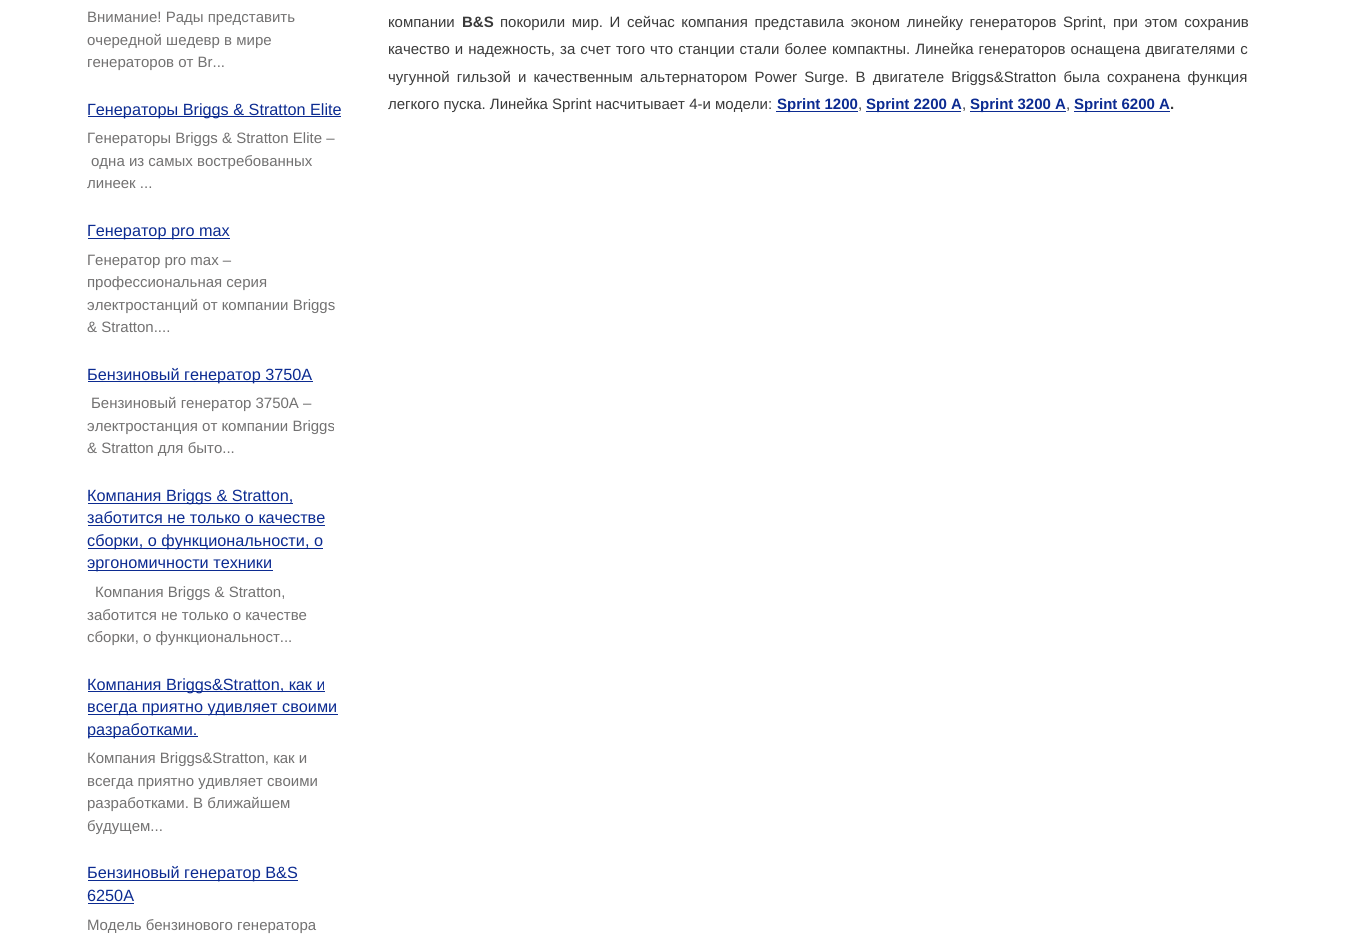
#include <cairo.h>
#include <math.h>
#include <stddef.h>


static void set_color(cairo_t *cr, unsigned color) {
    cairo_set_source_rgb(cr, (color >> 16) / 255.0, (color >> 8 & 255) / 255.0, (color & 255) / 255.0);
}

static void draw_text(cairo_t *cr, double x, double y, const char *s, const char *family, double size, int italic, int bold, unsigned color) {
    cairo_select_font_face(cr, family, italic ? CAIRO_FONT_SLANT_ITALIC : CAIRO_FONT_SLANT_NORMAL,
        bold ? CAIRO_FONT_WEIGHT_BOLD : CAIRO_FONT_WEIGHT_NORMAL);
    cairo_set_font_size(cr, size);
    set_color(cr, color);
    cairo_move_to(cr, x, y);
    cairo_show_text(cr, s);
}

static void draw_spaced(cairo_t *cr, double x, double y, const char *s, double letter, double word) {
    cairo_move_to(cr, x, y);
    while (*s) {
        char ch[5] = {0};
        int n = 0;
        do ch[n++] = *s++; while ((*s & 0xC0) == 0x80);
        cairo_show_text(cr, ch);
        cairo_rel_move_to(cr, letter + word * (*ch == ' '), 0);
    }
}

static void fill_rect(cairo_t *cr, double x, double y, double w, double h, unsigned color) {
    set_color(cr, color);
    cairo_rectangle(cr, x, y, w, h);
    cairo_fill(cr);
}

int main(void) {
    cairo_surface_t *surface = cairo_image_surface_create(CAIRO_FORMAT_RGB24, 1348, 942);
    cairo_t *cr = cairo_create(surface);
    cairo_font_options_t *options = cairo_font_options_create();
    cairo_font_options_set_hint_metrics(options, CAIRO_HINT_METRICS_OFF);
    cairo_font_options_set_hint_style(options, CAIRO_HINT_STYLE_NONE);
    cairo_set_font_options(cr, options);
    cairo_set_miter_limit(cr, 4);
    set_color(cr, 0xFFFFFF);
    cairo_paint(cr);
    draw_text(cr, 87, 22, "Внимание! Рады представить", "Liberation Sans", 15, 0, 0, 0x727171);
    draw_text(cr, 87, 45, "очередной шедевр в мире", "Liberation Sans", 15, 0, 0, 0x727171);
    draw_text(cr, 87, 67, "генераторов от Br...", "Liberation Sans", 15, 0, 0, 0x727171);
    fill_rect(cr, 88, 116, 253, 1, 0x0C2B91);
    draw_text(cr, 87, 115, "Генераторы Briggs & Stratton Elite", "Liberation Sans", 16.25, 0, 0, 0x0C2B91);
    draw_text(cr, 87, 143, "Генераторы Briggs & Stratton Elite –", "Liberation Sans", 15, 0, 0, 0x727171);
    draw_text(cr, 91, 166, "одна из самых востребованных", "Liberation Sans", 15, 0, 0, 0x727171);
    draw_text(cr, 87, 188, "линеек ...", "Liberation Sans", 15, 0, 0, 0x727171);
    fill_rect(cr, 88, 238, 142, 1, 0x0C2B91);
    draw_text(cr, 87, 236, "Генератор pro max", "Liberation Sans", 16.25, 0, 0, 0x0C2B91);
    draw_text(cr, 87, 265, "Генератор pro max –", "Liberation Sans", 15, 0, 0, 0x727171);
    draw_text(cr, 87, 287, "профессиональная серия", "Liberation Sans", 15, 0, 0, 0x727171);
    draw_text(cr, 87, 310, "электростанций от компании Briggs", "Liberation Sans", 15, 0, 0, 0x727171);
    draw_text(cr, 87, 332, "& Stratton....", "Liberation Sans", 15, 0, 0, 0x727171);
    fill_rect(cr, 88, 381, 225, 1, 0x0C2B91);
    draw_text(cr, 87, 380, "Бензиновый генератор 3750A", "Liberation Sans", 16.25, 0, 0, 0x0C2B91);
    draw_text(cr, 91, 408, "Бензиновый генератор 3750A –", "Liberation Sans", 15, 0, 0, 0x727171);
    draw_text(cr, 87, 431, "электростанция от компании Briggs", "Liberation Sans", 15, 0, 0, 0x727171);
    draw_text(cr, 87, 453, "& Stratton для быто...", "Liberation Sans", 15, 0, 0, 0x727171);
    fill_rect(cr, 88, 503, 205, 1, 0x0C2B91);
    draw_text(cr, 87, 501, "Компания Briggs & Stratton,", "Liberation Sans", 16.25, 0, 0, 0x0C2B91);
    draw_text(cr, 87, 523, "заботится не только о качестве", "Liberation Sans", 16.25, 0, 0, 0x0C2B91);
    fill_rect(cr, 88, 525, 237, 1, 0x0C2B91);
    fill_rect(cr, 88, 548, 235, 1, 0x0C2B91);
    draw_text(cr, 87, 546, "сборки, о функциональности, о", "Liberation Sans", 16.25, 0, 0, 0x0C2B91);
    fill_rect(cr, 88, 570, 185, 1, 0x0C2B91);
    draw_text(cr, 87, 568, "эргономичности техники", "Liberation Sans", 16.25, 0, 0, 0x0C2B91);
    draw_text(cr, 95, 597, "Компания Briggs & Stratton,", "Liberation Sans", 15, 0, 0, 0x727171);
    draw_text(cr, 87, 620, "заботится не только о качестве", "Liberation Sans", 15, 0, 0, 0x727171);
    draw_text(cr, 87, 642, "сборки, о функциональност...", "Liberation Sans", 15, 0, 0, 0x727171);
    fill_rect(cr, 88, 691, 237, 1, 0x0C2B91);
    draw_text(cr, 87, 690, "Компания Briggs&Stratton, как и", "Liberation Sans", 16.25, 0, 0, 0x0C2B91);
    fill_rect(cr, 88, 714, 250, 1, 0x0C2B91);
    draw_text(cr, 87, 712, "всегда приятно удивляет своими", "Liberation Sans", 16.25, 0, 0, 0x0C2B91);
    fill_rect(cr, 88, 736, 110, 1, 0x0C2B91);
    draw_text(cr, 87, 735, "разработками.", "Liberation Sans", 16.25, 0, 0, 0x0C2B91);
    draw_text(cr, 87, 763, "Компания Briggs&Stratton, как и", "Liberation Sans", 15, 0, 0, 0x727171);
    draw_text(cr, 87, 786, "всегда приятно удивляет своими", "Liberation Sans", 15, 0, 0, 0x727171);
    draw_text(cr, 87, 808, "разработками. В ближайшем", "Liberation Sans", 15, 0, 0, 0x727171);
    draw_text(cr, 87, 831, "будущем...", "Liberation Sans", 15, 0, 0, 0x727171);
    fill_rect(cr, 88, 880, 210, 1, 0x0C2B91);
    draw_text(cr, 87, 878, "Бензиновый генератор B&S", "Liberation Sans", 16.25, 0, 0, 0x0C2B91);
    draw_text(cr, 87, 901, "6250A", "Liberation Sans", 16.25, 0, 0, 0x0C2B91);
    fill_rect(cr, 88, 903, 46, 1, 0x0C2B91);
    draw_text(cr, 87, 930, "Модель бензинового генератора", "Liberation Sans", 15, 0, 0, 0x727171);
    draw_text(cr, 388, 27, "компании", "Liberation Sans", 15, 0, 0, 0x3A3A3A);
    draw_text(cr, 462, 27, "B&S", "Liberation Sans", 15, 0, 1, 0x3A3A3A);
    cairo_select_font_face(cr, "Liberation Sans", CAIRO_FONT_SLANT_NORMAL, CAIRO_FONT_WEIGHT_NORMAL);
    draw_spaced(cr, 500, 27, "покорили мир. И сейчас компания представила эконом линейку генераторов Sprint, при этом сохранив", 0, 2.4);
    draw_spaced(cr, 388, 54, "качество и надежность, за счет того что станции стали более компактны. Линейка генераторов оснащена двигателями с", 0, 0.9);
    draw_spaced(cr, 388, 82, "чугунной гильзой и качественным альтернатором Power Surge. В двигателе Briggs&Stratton была сохранена функция", 0, 3);
    draw_text(cr, 388, 109, "легкого пуска. Линейка Sprint насчитывает 4-и модели:", "Liberation Sans", 15, 0, 0, 0x3A3A3A);
    fill_rect(cr, 776, 111, 82, 1, 0x0C2B91);
    draw_text(cr, 777, 109, "Sprint 1200", "Liberation Sans", 15, 0, 1, 0x0C2B91);
    draw_text(cr, 858, 109, ",", "Liberation Sans", 15, 0, 0, 0x3A3A3A);
    fill_rect(cr, 866, 111, 95, 1, 0x0C2B91);
    draw_text(cr, 866, 109, "Sprint 2200 А", "Liberation Sans", 15, 0, 1, 0x0C2B91);
    draw_text(cr, 962, 109, ",", "Liberation Sans", 15, 0, 0, 0x3A3A3A);
    fill_rect(cr, 970, 111, 96, 1, 0x0C2B91);
    draw_text(cr, 970, 109, "Sprint 3200 А", "Liberation Sans", 15, 0, 1, 0x0C2B91);
    draw_text(cr, 1066, 109, ",", "Liberation Sans", 15, 0, 0, 0x3A3A3A);
    fill_rect(cr, 1074, 111, 96, 1, 0x0C2B91);
    draw_text(cr, 1074, 109, "Sprint 6200 А", "Liberation Sans", 15, 0, 1, 0x0C2B91);
    draw_text(cr, 1170, 109, ".", "Liberation Sans", 15, 0, 1, 0x3A3A3A);
    cairo_surface_write_to_png(surface, "output.png");
    cairo_font_options_destroy(options);
    cairo_destroy(cr);
    cairo_surface_destroy(surface);
    return 0;
}
